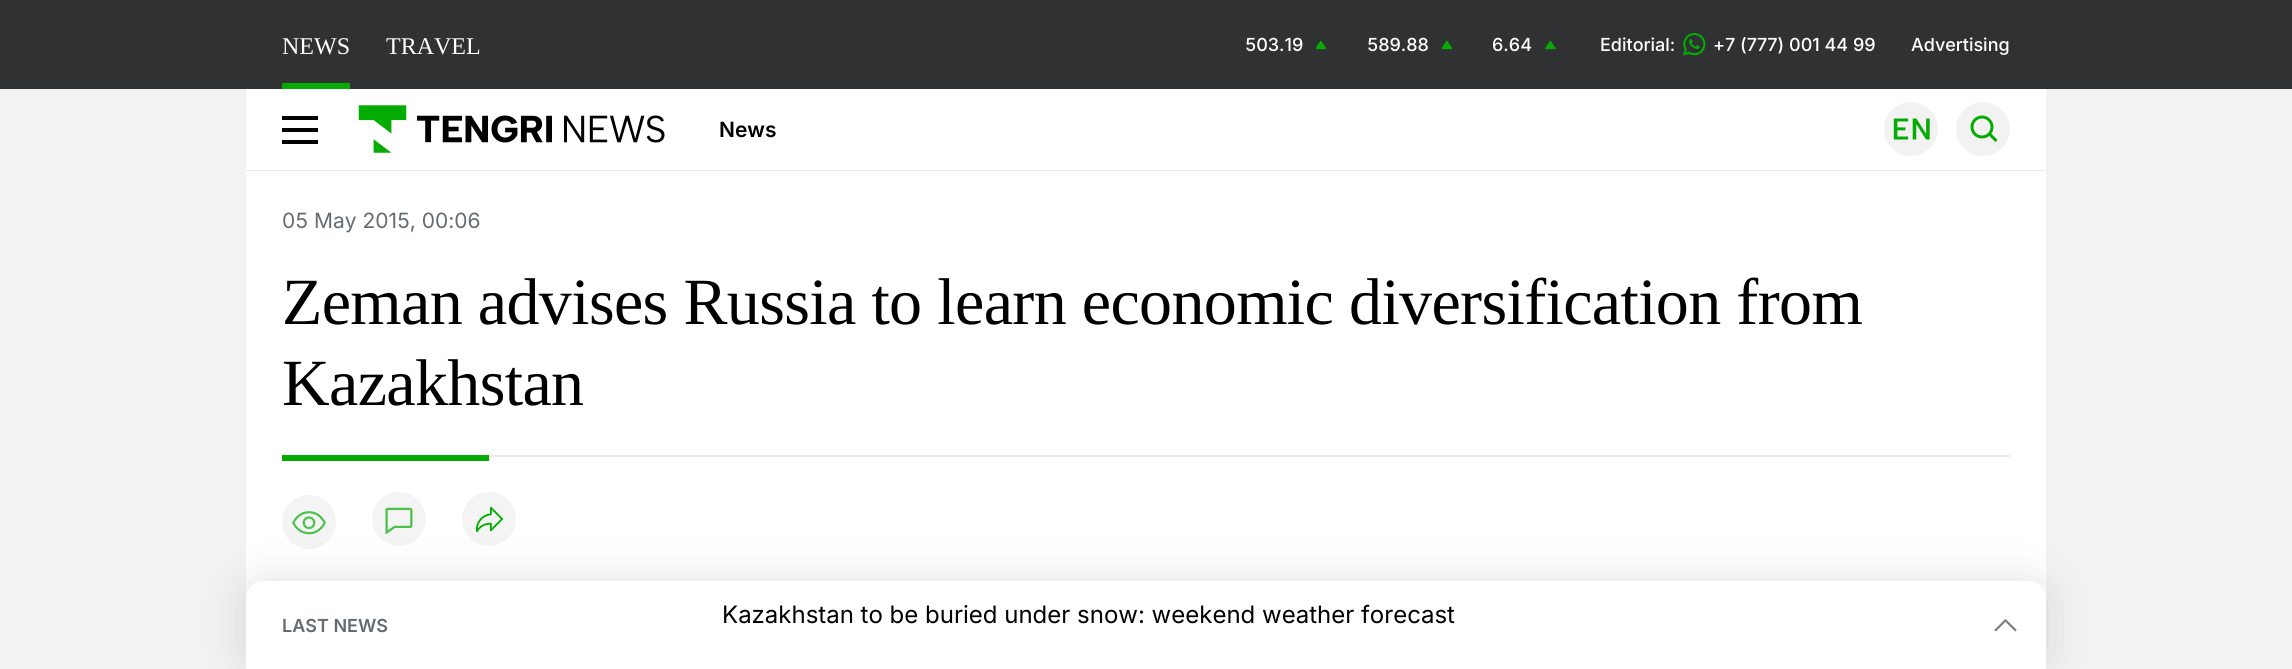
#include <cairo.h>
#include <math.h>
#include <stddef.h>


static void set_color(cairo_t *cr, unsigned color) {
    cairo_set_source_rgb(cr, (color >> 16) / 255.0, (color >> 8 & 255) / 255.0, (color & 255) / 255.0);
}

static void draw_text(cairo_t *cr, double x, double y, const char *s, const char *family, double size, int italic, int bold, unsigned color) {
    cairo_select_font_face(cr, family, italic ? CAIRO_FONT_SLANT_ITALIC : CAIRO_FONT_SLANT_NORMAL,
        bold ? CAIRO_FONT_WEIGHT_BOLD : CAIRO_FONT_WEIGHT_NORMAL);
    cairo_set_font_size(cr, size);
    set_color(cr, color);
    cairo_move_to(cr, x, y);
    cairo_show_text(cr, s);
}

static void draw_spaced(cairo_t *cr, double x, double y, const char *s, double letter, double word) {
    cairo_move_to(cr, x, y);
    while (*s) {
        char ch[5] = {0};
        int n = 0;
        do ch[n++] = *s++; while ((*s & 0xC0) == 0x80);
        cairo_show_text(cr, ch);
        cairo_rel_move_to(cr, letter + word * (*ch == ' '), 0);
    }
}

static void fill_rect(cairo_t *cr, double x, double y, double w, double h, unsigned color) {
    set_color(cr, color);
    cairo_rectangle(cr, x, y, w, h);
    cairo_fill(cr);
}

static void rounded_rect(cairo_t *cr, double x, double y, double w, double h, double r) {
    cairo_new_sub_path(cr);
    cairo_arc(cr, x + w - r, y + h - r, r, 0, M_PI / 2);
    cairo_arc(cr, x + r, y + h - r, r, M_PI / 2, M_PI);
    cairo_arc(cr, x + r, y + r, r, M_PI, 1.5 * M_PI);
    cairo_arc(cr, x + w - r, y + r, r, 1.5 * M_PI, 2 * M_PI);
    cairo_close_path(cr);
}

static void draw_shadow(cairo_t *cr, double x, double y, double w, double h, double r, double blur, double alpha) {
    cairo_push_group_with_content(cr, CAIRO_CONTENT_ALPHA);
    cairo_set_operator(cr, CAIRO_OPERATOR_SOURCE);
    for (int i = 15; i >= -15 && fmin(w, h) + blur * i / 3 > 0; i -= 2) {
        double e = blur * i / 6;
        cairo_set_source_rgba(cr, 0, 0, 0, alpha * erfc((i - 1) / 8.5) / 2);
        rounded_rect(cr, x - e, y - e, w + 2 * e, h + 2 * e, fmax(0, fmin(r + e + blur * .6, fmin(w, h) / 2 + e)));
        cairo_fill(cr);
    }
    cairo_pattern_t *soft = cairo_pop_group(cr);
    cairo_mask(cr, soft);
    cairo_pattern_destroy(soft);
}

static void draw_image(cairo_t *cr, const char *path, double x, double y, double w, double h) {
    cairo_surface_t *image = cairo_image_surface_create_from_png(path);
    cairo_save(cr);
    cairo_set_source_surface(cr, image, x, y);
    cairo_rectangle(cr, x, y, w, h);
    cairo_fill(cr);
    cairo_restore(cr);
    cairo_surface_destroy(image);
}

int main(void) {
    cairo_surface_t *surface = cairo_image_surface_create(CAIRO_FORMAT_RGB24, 2292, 669);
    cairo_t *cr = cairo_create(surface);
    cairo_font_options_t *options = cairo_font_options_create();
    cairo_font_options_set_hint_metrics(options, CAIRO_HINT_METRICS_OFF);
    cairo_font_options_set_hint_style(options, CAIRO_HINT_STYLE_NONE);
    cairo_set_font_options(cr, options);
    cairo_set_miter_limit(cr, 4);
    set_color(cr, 0xF1F2F1);
    cairo_paint(cr);
    fill_rect(cr, 0, 0, 2292, 89, 0x303133);
    fill_rect(cr, 282, 83, 68, 6, 0x03AB02);
    draw_text(cr, 282, 54, "NEWS", "Liberation Serif", 24, 0, 0, 0xFFFFFF);
    draw_text(cr, 386, 54, "TRAVEL", "Liberation Serif", 24, 0, 0, 0xFFFFFF);
    draw_text(cr, 1245, 51, "503.19", "Inter Medium", 18, 0, 0, 0xFFFFFF);
    draw_image(cr, "assets/img1.png", 1316, 40, 11, 10);
    draw_text(cr, 1367, 51, "589.88", "Inter Medium", 18, 0, 0, 0xFFFFFF);
    draw_image(cr, "assets/img1.png", 1442, 40, 11, 10);
    draw_text(cr, 1492, 51, "6.64", "Inter Medium", 18, 0, 0, 0xFFFFFF);
    draw_image(cr, "assets/img2.png", 1545, 40, 11, 10);
    draw_text(cr, 1600, 51, "Editorial:", "Inter Medium", 18, 0, 0, 0xFFFFFF);
    draw_image(cr, "assets/img3.png", 1683, 33, 23, 23);
    draw_text(cr, 1713, 51, "+7 (777) 001 44 99", "Inter Medium", 18, 0, 0, 0xFFFFFF);
    draw_text(cr, 1911, 51, "Advertising", "Inter Medium", 18, 0, 0, 0xFFFFFF);
    fill_rect(cr, 246, 89, 1800, 81, 0xFFFFFF);
    fill_rect(cr, 246, 170, 1800, 1, 0xEAEAEC);
    fill_rect(cr, 282, 116, 36, 4, 0x000000);
    fill_rect(cr, 282, 128, 36, 4, 0x000000);
    fill_rect(cr, 282, 140, 36, 4, 0x000000);
    draw_image(cr, "assets/img4.png", 358, 105, 307, 48);
    draw_text(cr, 719, 137, "News", "Inter SemiBold", 21, 0, 0, 0x000000);
    draw_image(cr, "assets/img5.png", 1884, 102, 54, 54);
    set_color(cr, 0xF2F2F2);
    cairo_arc(cr, 1983, 129, 27, 0, 2 * M_PI);
    cairo_fill(cr);
    cairo_arc(cr, 1982, 127, 10, 0, 2 * M_PI);
    set_color(cr, 0x03AB02);
    cairo_set_line_width(cr, 3);
    cairo_stroke(cr);
    cairo_new_path(cr);
    cairo_move_to(cr, 1989, 133.5);
    cairo_line_to(cr, 1996.5, 141);
    cairo_stroke(cr);
    fill_rect(cr, 246, 171, 1800, 428, 0xFFFFFF);
    draw_text(cr, 282, 228, "05 May 2015, 00:06", "Inter", 21, 0, 0, 0x656B71);
    fill_rect(cr, 489, 455, 1521, 2, 0xEAEAEC);
    cairo_select_font_face(cr, "Liberation Serif", CAIRO_FONT_SLANT_NORMAL, CAIRO_FONT_WEIGHT_NORMAL);
    cairo_set_font_size(cr, 66);
    set_color(cr, 0x000000);
    draw_spaced(cr, 282, 324, "Zeman advises Russia to learn economic diversification from", -0.65, 0);
    draw_spaced(cr, 282, 405, "Kazakhstan", -0.65, 0);
    fill_rect(cr, 282, 455, 207, 6, 0x03AB02);
    draw_image(cr, "assets/img6.png", 282, 495, 54, 54);
    draw_image(cr, "assets/img7.png", 372, 492, 54, 54);
    draw_image(cr, "assets/img8.png", 462, 492, 54, 54);
    set_color(cr, 0x000000);
    draw_shadow(cr, 246, 581, 1800, 88, 18, 22.5, 0.12);
    set_color(cr, 0xFFFFFF);
    cairo_new_path(cr);
    cairo_move_to(cr, 264, 581);
    cairo_line_to(cr, 2028, 581);
    cairo_curve_to(cr, 2038, 581, 2046, 589, 2046, 599);
    cairo_line_to(cr, 2046, 669);
    cairo_line_to(cr, 246, 669);
    cairo_line_to(cr, 246, 599);
    cairo_curve_to(cr, 246, 589, 254, 581, 264, 581);
    cairo_close_path(cr);
    cairo_fill(cr);
    draw_text(cr, 722, 623, "Kazakhstan to be buried under snow: weekend weather forecast", "Inter", 24, 0, 0, 0x000000);
    draw_text(cr, 282, 632, "LAST NEWS", "Inter SemiBold", 18, 0, 0, 0x656B71);
    draw_image(cr, "assets/img9.png", 1994, 619, 23, 13);
    cairo_surface_write_to_png(surface, "output.png");
    cairo_font_options_destroy(options);
    cairo_destroy(cr);
    cairo_surface_destroy(surface);
    return 0;
}
